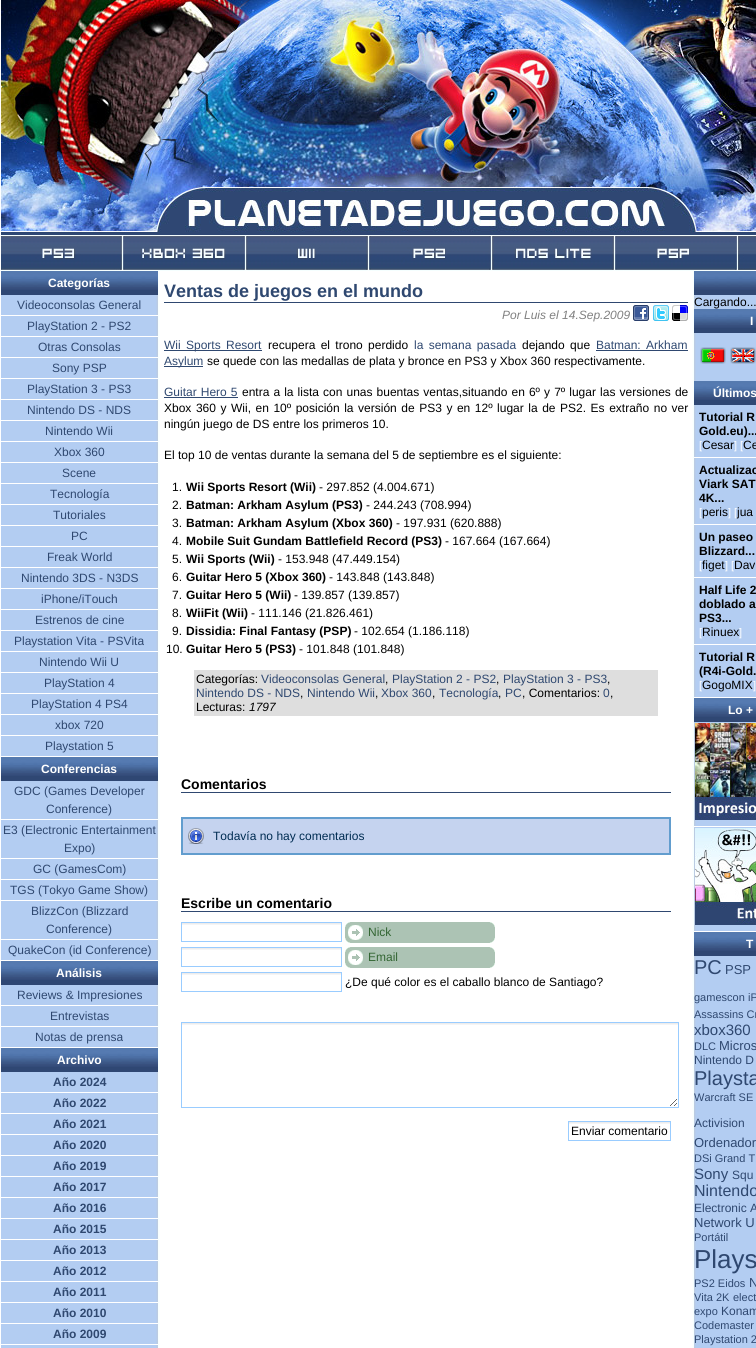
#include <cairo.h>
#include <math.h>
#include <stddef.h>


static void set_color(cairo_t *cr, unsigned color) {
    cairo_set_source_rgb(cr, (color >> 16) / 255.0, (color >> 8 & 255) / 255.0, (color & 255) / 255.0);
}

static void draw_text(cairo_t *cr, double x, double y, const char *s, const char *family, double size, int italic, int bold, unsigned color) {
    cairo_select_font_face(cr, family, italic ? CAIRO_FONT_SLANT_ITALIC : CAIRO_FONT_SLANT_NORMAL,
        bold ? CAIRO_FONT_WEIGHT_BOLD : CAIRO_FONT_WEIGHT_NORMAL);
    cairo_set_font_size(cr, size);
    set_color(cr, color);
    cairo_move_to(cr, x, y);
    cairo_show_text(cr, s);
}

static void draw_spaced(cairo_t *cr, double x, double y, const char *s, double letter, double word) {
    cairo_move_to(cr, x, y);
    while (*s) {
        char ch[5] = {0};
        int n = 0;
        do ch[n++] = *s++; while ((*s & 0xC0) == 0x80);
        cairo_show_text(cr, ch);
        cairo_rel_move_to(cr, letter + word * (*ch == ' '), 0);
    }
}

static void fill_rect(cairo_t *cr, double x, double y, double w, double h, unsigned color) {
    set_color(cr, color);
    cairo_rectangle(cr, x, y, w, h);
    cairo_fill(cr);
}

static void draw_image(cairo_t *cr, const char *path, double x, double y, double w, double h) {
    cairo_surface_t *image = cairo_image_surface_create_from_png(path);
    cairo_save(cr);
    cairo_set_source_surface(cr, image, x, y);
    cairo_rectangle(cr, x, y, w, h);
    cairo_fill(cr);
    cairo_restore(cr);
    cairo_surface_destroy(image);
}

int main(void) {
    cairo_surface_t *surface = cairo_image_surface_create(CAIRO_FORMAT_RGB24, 756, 1348);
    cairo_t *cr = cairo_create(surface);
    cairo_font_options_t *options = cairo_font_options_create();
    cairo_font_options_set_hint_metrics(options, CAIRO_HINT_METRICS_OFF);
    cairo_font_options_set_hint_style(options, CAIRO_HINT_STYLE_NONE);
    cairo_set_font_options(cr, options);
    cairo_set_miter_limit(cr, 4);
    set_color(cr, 0xFFFFFF);
    cairo_paint(cr);
    draw_image(cr, "assets/img1.png", 1, 0, 755, 235);
    draw_image(cr, "assets/img2.png", 1, 235, 755, 36);
    draw_image(cr, "assets/img3.png", 1, 271, 755, 1077);
    fill_rect(cr, 1, 290, 157, 5, 0x2F4773);
    draw_image(cr, "assets/img4.png", 1, 271, 157, 19);
    draw_text(cr, 48, 287, "Categorías", "Liberation Sans", 12, 0, 1, 0xFFFFFF);
    fill_rect(cr, 1, 315, 157, 1, 0xFFFFFF);
    draw_text(cr, 17, 309, "Videoconsolas General", "Liberation Sans", 12, 0, 0, 0x2F4870);
    fill_rect(cr, 1, 336, 157, 1, 0xFFFFFF);
    draw_text(cr, 27, 330, "PlayStation 2 - PS2", "Liberation Sans", 12, 0, 0, 0x2F4870);
    fill_rect(cr, 1, 357, 157, 1, 0xFFFFFF);
    draw_text(cr, 38, 351, "Otras Consolas", "Liberation Sans", 12, 0, 0, 0x2F4870);
    fill_rect(cr, 1, 378, 157, 1, 0xFFFFFF);
    draw_text(cr, 52, 372, "Sony PSP", "Liberation Sans", 12, 0, 0, 0x2F4870);
    fill_rect(cr, 1, 399, 157, 1, 0xFFFFFF);
    draw_text(cr, 27, 393, "PlayStation 3 - PS3", "Liberation Sans", 12, 0, 0, 0x2F4870);
    fill_rect(cr, 1, 420, 157, 1, 0xFFFFFF);
    draw_text(cr, 27, 414, "Nintendo DS - NDS", "Liberation Sans", 12, 0, 0, 0x2F4870);
    fill_rect(cr, 1, 441, 157, 1, 0xFFFFFF);
    draw_text(cr, 45, 435, "Nintendo Wii", "Liberation Sans", 12, 0, 0, 0x2F4870);
    fill_rect(cr, 1, 462, 157, 1, 0xFFFFFF);
    draw_text(cr, 54, 456, "Xbox 360", "Liberation Sans", 12, 0, 0, 0x2F4870);
    fill_rect(cr, 1, 483, 157, 1, 0xFFFFFF);
    draw_text(cr, 62, 477, "Scene", "Liberation Sans", 12, 0, 0, 0x2F4870);
    fill_rect(cr, 1, 504, 157, 1, 0xFFFFFF);
    draw_text(cr, 50, 498, "Tecnología", "Liberation Sans", 12, 0, 0, 0x2F4870);
    fill_rect(cr, 1, 525, 157, 1, 0xFFFFFF);
    draw_text(cr, 53, 519, "Tutoriales", "Liberation Sans", 12, 0, 0, 0x2F4870);
    fill_rect(cr, 1, 546, 157, 1, 0xFFFFFF);
    draw_text(cr, 71, 540, "PC", "Liberation Sans", 12, 0, 0, 0x2F4870);
    fill_rect(cr, 1, 567, 157, 1, 0xFFFFFF);
    draw_text(cr, 47, 561, "Freak World", "Liberation Sans", 12, 0, 0, 0x2F4870);
    fill_rect(cr, 1, 588, 157, 1, 0xFFFFFF);
    draw_text(cr, 21, 582, "Nintendo 3DS - N3DS", "Liberation Sans", 12, 0, 0, 0x2F4870);
    fill_rect(cr, 1, 609, 157, 1, 0xFFFFFF);
    draw_text(cr, 41, 603, "iPhone/iTouch", "Liberation Sans", 12, 0, 0, 0x2F4870);
    fill_rect(cr, 1, 630, 157, 1, 0xFFFFFF);
    draw_text(cr, 35, 624, "Estrenos de cine", "Liberation Sans", 12, 0, 0, 0x2F4870);
    fill_rect(cr, 1, 651, 157, 1, 0xFFFFFF);
    draw_text(cr, 14, 645, "Playstation Vita - PSVita", "Liberation Sans", 12, 0, 0, 0x2F4870);
    fill_rect(cr, 1, 672, 157, 1, 0xFFFFFF);
    draw_text(cr, 39, 666, "Nintendo Wii U", "Liberation Sans", 12, 0, 0, 0x2F4870);
    fill_rect(cr, 1, 693, 157, 1, 0xFFFFFF);
    draw_text(cr, 44, 687, "PlayStation 4", "Liberation Sans", 12, 0, 0, 0x2F4870);
    fill_rect(cr, 1, 714, 157, 1, 0xFFFFFF);
    draw_text(cr, 31, 708, "PlayStation 4 PS4", "Liberation Sans", 12, 0, 0, 0x2F4870);
    fill_rect(cr, 1, 735, 157, 1, 0xFFFFFF);
    draw_text(cr, 55, 729, "xbox 720", "Liberation Sans", 12, 0, 0, 0x2F4870);
    fill_rect(cr, 1, 756, 157, 1, 0xFFFFFF);
    draw_text(cr, 45, 750, "Playstation 5", "Liberation Sans", 12, 0, 0, 0x2F4870);
    fill_rect(cr, 1, 776, 157, 5, 0x2F4773);
    draw_image(cr, "assets/img4.png", 1, 757, 157, 19);
    draw_text(cr, 41, 773, "Conferencias", "Liberation Sans", 12, 0, 1, 0xFFFFFF);
    fill_rect(cr, 1, 819, 157, 1, 0xFFFFFF);
    draw_text(cr, 14, 795, "GDC (Games Developer", "Liberation Sans", 12, 0, 0, 0x2F4870);
    draw_text(cr, 46, 813, "Conference)", "Liberation Sans", 12, 0, 0, 0x2F4870);
    fill_rect(cr, 1, 858, 157, 1, 0xFFFFFF);
    draw_text(cr, 3, 834, "E3 (Electronic Entertainment", "Liberation Sans", 12, 0, 0, 0x2F4870);
    draw_text(cr, 64, 852, "Expo)", "Liberation Sans", 12, 0, 0, 0x2F4870);
    fill_rect(cr, 1, 879, 157, 1, 0xFFFFFF);
    draw_text(cr, 33, 873, "GC (GamesCom)", "Liberation Sans", 12, 0, 0, 0x2F4870);
    fill_rect(cr, 1, 900, 157, 1, 0xFFFFFF);
    draw_text(cr, 10, 894, "TGS (Tokyo Game Show)", "Liberation Sans", 12, 0, 0, 0x2F4870);
    fill_rect(cr, 1, 939, 157, 1, 0xFFFFFF);
    draw_text(cr, 31, 915, "BlizzCon (Blizzard", "Liberation Sans", 12, 0, 0, 0x2F4870);
    draw_text(cr, 46, 933, "Conference)", "Liberation Sans", 12, 0, 0, 0x2F4870);
    fill_rect(cr, 1, 960, 157, 1, 0xFFFFFF);
    draw_text(cr, 8, 954, "QuakeCon (id Conference)", "Liberation Sans", 12, 0, 0, 0x2F4870);
    fill_rect(cr, 1, 980, 157, 5, 0x2F4773);
    draw_image(cr, "assets/img4.png", 1, 961, 157, 19);
    draw_text(cr, 56, 977, "Análisis", "Liberation Sans", 12, 0, 1, 0xFFFFFF);
    fill_rect(cr, 1, 1005, 157, 1, 0xFFFFFF);
    draw_text(cr, 17, 999, "Reviews & Impresiones", "Liberation Sans", 12, 0, 0, 0x2F4870);
    fill_rect(cr, 1, 1026, 157, 1, 0xFFFFFF);
    draw_text(cr, 50, 1020, "Entrevistas", "Liberation Sans", 12, 0, 0, 0x2F4870);
    fill_rect(cr, 1, 1047, 157, 1, 0xFFFFFF);
    draw_text(cr, 35, 1041, "Notas de prensa", "Liberation Sans", 12, 0, 0, 0x2F4870);
    fill_rect(cr, 1, 1067, 157, 5, 0x2F4773);
    draw_image(cr, "assets/img4.png", 1, 1048, 157, 19);
    draw_text(cr, 57, 1064, "Archivo", "Liberation Sans", 12, 0, 1, 0xFFFFFF);
    fill_rect(cr, 1, 1092, 157, 1, 0xFFFFFF);
    draw_text(cr, 53, 1086, "Año 2024", "Liberation Sans", 12, 0, 1, 0x2F4870);
    fill_rect(cr, 1, 1113, 157, 1, 0xFFFFFF);
    draw_text(cr, 53, 1107, "Año 2022", "Liberation Sans", 12, 0, 1, 0x2F4870);
    fill_rect(cr, 1, 1134, 157, 1, 0xFFFFFF);
    draw_text(cr, 53, 1128, "Año 2021", "Liberation Sans", 12, 0, 1, 0x2F4870);
    fill_rect(cr, 1, 1155, 157, 1, 0xFFFFFF);
    draw_text(cr, 53, 1149, "Año 2020", "Liberation Sans", 12, 0, 1, 0x2F4870);
    fill_rect(cr, 1, 1176, 157, 1, 0xFFFFFF);
    draw_text(cr, 53, 1170, "Año 2019", "Liberation Sans", 12, 0, 1, 0x2F4870);
    fill_rect(cr, 1, 1197, 157, 1, 0xFFFFFF);
    draw_text(cr, 53, 1191, "Año 2017", "Liberation Sans", 12, 0, 1, 0x2F4870);
    fill_rect(cr, 1, 1218, 157, 1, 0xFFFFFF);
    draw_text(cr, 53, 1212, "Año 2016", "Liberation Sans", 12, 0, 1, 0x2F4870);
    fill_rect(cr, 1, 1239, 157, 1, 0xFFFFFF);
    draw_text(cr, 53, 1233, "Año 2015", "Liberation Sans", 12, 0, 1, 0x2F4870);
    fill_rect(cr, 1, 1260, 157, 1, 0xFFFFFF);
    draw_text(cr, 53, 1254, "Año 2013", "Liberation Sans", 12, 0, 1, 0x2F4870);
    fill_rect(cr, 1, 1281, 157, 1, 0xFFFFFF);
    draw_text(cr, 53, 1275, "Año 2012", "Liberation Sans", 12, 0, 1, 0x2F4870);
    fill_rect(cr, 1, 1302, 157, 1, 0xFFFFFF);
    draw_text(cr, 53, 1296, "Año 2011", "Liberation Sans", 12, 0, 1, 0x2F4870);
    fill_rect(cr, 1, 1323, 157, 1, 0xFFFFFF);
    draw_text(cr, 53, 1317, "Año 2010", "Liberation Sans", 12, 0, 1, 0x2F4870);
    fill_rect(cr, 1, 1344, 157, 1, 0xFFFFFF);
    draw_text(cr, 53, 1338, "Año 2009", "Liberation Sans", 12, 0, 1, 0x2F4870);
    fill_rect(cr, 164, 302, 524, 1, 0x2F4870);
    draw_text(cr, 164, 297, "Ventas de juegos en el mundo", "Liberation Sans", 18, 0, 1, 0x2F4870);
    draw_text(cr, 502, 319, "Por Luis el 14.Sep.2009", "Liberation Sans", 12, 1, 0, 0x808080);
    draw_image(cr, "assets/img5.png", 633, 305, 16, 16);
    draw_image(cr, "assets/img6.png", 653, 305, 16, 16);
    draw_image(cr, "assets/img7.png", 672, 305, 16, 16);
    fill_rect(cr, 164, 350, 98, 1, 0x2F4870);
    cairo_select_font_face(cr, "Liberation Sans", CAIRO_FONT_SLANT_NORMAL, CAIRO_FONT_WEIGHT_NORMAL);
    draw_spaced(cr, 164, 349, "Wii Sports Resort", 0, 2);
    set_color(cr, 0x000000);
    draw_spaced(cr, 268, 349, "recupera el trono perdido", 0, 2);
    set_color(cr, 0x2F4870);
    draw_spaced(cr, 414, 349, "la semana pasada", 0, 2);
    set_color(cr, 0x000000);
    draw_spaced(cr, 522, 349, "dejando que", 0, 2);
    set_color(cr, 0x2F4870);
    draw_spaced(cr, 596, 349, "Batman: Arkham", 0, 2);
    fill_rect(cr, 596, 350, 92, 1, 0x2F4870);
    fill_rect(cr, 164, 366, 39, 1, 0x2F4870);
    draw_text(cr, 164, 365, "Asylum", "Liberation Sans", 12, 0, 0, 0x2F4870);
    draw_text(cr, 207, 365, "se quede con las medallas de plata y bronce en PS3 y Xbox 360 respectivamente.", "Liberation Sans", 12, 0, 0, 0x000000);
    set_color(cr, 0x2F4870);
    draw_spaced(cr, 164, 396, "Guitar Hero 5", 0, 0.75);
    fill_rect(cr, 164, 397, 74, 1, 0x2F4870);
    set_color(cr, 0x000000);
    draw_spaced(cr, 242, 396, "entra a la lista con unas buentas ventas,situando en 6º y 7º lugar las versiones de", 0, 0.75);
    draw_spaced(cr, 164, 412, "Xbox 360 y Wii, en 10º posición la versión de PS3 y en 12º lugar la de PS2. Es extraño no ver", 0, 1.2);
    draw_text(cr, 164, 428, "ningún juego de DS entre los primeros 10.", "Liberation Sans", 12, 0, 0, 0x000000);
    draw_text(cr, 164, 459, "El top 10 de ventas durante la semana del 5 de septiembre es el siguiente:", "Liberation Sans", 12, 0, 0, 0x000000);
    draw_text(cr, 172, 491, "1.", "Liberation Sans", 12, 0, 0, 0x000000);
    draw_text(cr, 186, 491, "Wii Sports Resort (Wii)", "Liberation Sans", 12, 0, 1, 0x000000);
    draw_text(cr, 319, 491, "- 297.852 (4.004.671)", "Liberation Sans", 12, 0, 0, 0x000000);
    draw_text(cr, 172, 509, "2.", "Liberation Sans", 12, 0, 0, 0x000000);
    draw_text(cr, 186, 509, "Batman: Arkham Asylum (PS3)", "Liberation Sans", 12, 0, 1, 0x000000);
    draw_text(cr, 366, 509, "- 244.243 (708.994)", "Liberation Sans", 12, 0, 0, 0x000000);
    draw_text(cr, 172, 527, "3.", "Liberation Sans", 12, 0, 0, 0x000000);
    draw_text(cr, 186, 527, "Batman: Arkham Asylum (Xbox 360)", "Liberation Sans", 12, 0, 1, 0x000000);
    draw_text(cr, 396, 527, "- 197.931 (620.888)", "Liberation Sans", 12, 0, 0, 0x000000);
    draw_text(cr, 172, 545, "4.", "Liberation Sans", 12, 0, 0, 0x000000);
    draw_text(cr, 186, 545, "Mobile Suit Gundam Battlefield Record (PS3)", "Liberation Sans", 12, 0, 1, 0x000000);
    draw_text(cr, 445, 545, "- 167.664 (167.664)", "Liberation Sans", 12, 0, 0, 0x000000);
    draw_text(cr, 172, 563, "5.", "Liberation Sans", 12, 0, 0, 0x000000);
    draw_text(cr, 186, 563, "Wii Sports (Wii)", "Liberation Sans", 12, 0, 1, 0x000000);
    draw_text(cr, 278, 563, "- 153.948 (47.449.154)", "Liberation Sans", 12, 0, 0, 0x000000);
    draw_text(cr, 172, 581, "6.", "Liberation Sans", 12, 0, 0, 0x000000);
    draw_text(cr, 186, 581, "Guitar Hero 5 (Xbox 360)", "Liberation Sans", 12, 0, 1, 0x000000);
    draw_text(cr, 329, 581, "- 143.848 (143.848)", "Liberation Sans", 12, 0, 0, 0x000000);
    draw_text(cr, 172, 599, "7.", "Liberation Sans", 12, 0, 0, 0x000000);
    draw_text(cr, 186, 599, "Guitar Hero 5 (Wii)", "Liberation Sans", 12, 0, 1, 0x000000);
    draw_text(cr, 294, 599, "- 139.857 (139.857)", "Liberation Sans", 12, 0, 0, 0x000000);
    draw_text(cr, 172, 617, "8.", "Liberation Sans", 12, 0, 0, 0x000000);
    draw_text(cr, 186, 617, "WiiFit (Wii)", "Liberation Sans", 12, 0, 1, 0x000000);
    draw_text(cr, 251, 617, "- 111.146 (21.826.461)", "Liberation Sans", 12, 0, 0, 0x000000);
    draw_text(cr, 172, 635, "9.", "Liberation Sans", 12, 0, 0, 0x000000);
    draw_text(cr, 186, 635, "Dissidia: Final Fantasy (PSP)", "Liberation Sans", 12, 0, 1, 0x000000);
    draw_text(cr, 354, 635, "- 102.654 (1.186.118)", "Liberation Sans", 12, 0, 0, 0x000000);
    draw_text(cr, 166, 653, "10.", "Liberation Sans", 12, 0, 0, 0x000000);
    draw_text(cr, 186, 653, "Guitar Hero 5 (PS3)", "Liberation Sans", 12, 0, 1, 0x000000);
    draw_text(cr, 299, 653, "- 101.848 (101.848)", "Liberation Sans", 12, 0, 0, 0x000000);
    fill_rect(cr, 194, 670, 464, 46, 0xDEDEDE);
    draw_text(cr, 196, 683, "Categorías:", "Liberation Sans", 12, 0, 0, 0x000000);
    draw_text(cr, 261, 683, "Videoconsolas General", "Liberation Sans", 12, 0, 0, 0x2F4870);
    draw_text(cr, 385, 683, ",", "Liberation Sans", 12, 0, 0, 0x000000);
    draw_text(cr, 392, 683, "PlayStation 2 - PS2", "Liberation Sans", 12, 0, 0, 0x2F4870);
    draw_text(cr, 496, 683, ",", "Liberation Sans", 12, 0, 0, 0x000000);
    draw_text(cr, 503, 683, "PlayStation 3 - PS3", "Liberation Sans", 12, 0, 0, 0x2F4870);
    draw_text(cr, 607, 683, ",", "Liberation Sans", 12, 0, 0, 0x000000);
    draw_text(cr, 196, 697, "Nintendo DS - NDS", "Liberation Sans", 12, 0, 0, 0x2F4870);
    draw_text(cr, 300, 697, ",", "Liberation Sans", 12, 0, 0, 0x000000);
    draw_text(cr, 307, 697, "Nintendo Wii", "Liberation Sans", 12, 0, 0, 0x2F4870);
    draw_text(cr, 375, 697, ",", "Liberation Sans", 12, 0, 0, 0x000000);
    draw_text(cr, 381, 697, "Xbox 360", "Liberation Sans", 12, 0, 0, 0x2F4870);
    draw_text(cr, 432, 697, ",", "Liberation Sans", 12, 0, 0, 0x000000);
    draw_text(cr, 439, 697, "Tecnología", "Liberation Sans", 12, 0, 0, 0x2F4870);
    draw_text(cr, 498, 697, ",", "Liberation Sans", 12, 0, 0, 0x000000);
    draw_text(cr, 505, 697, "PC", "Liberation Sans", 12, 0, 0, 0x2F4870);
    draw_text(cr, 522, 697, ", Comentarios:", "Liberation Sans", 12, 0, 0, 0x000000);
    draw_text(cr, 603, 697, "0", "Liberation Sans", 12, 0, 0, 0x2F4870);
    draw_text(cr, 610, 697, ",", "Liberation Sans", 12, 0, 0, 0x000000);
    draw_text(cr, 196, 711, "Lecturas:", "Liberation Sans", 12, 0, 0, 0x000000);
    draw_text(cr, 249, 711, "1797", "Liberation Sans", 12, 1, 0, 0x000000);
    fill_rect(cr, 181, 792, 490, 1, 0x2F4870);
    draw_text(cr, 181, 789, "Comentarios", "Liberation Sans", 14, 0, 1, 0x000000);
    fill_rect(cr, 183, 819, 486, 34, 0xC5D3EF);
    draw_image(cr, "assets/img8.png", 188, 828, 16, 16);
    cairo_rectangle(cr, 182, 818, 488, 36);
    set_color(cr, 0x629DCE);
    cairo_stroke(cr);
    draw_text(cr, 213, 840, "Todavía no hay comentarios", "Liberation Sans", 12, 0, 0, 0x002C52);
    fill_rect(cr, 181, 911, 490, 1, 0x2F4870);
    draw_text(cr, 181, 908, "Escribe un comentario", "Liberation Sans", 14, 0, 1, 0x000000);
    draw_image(cr, "assets/img9.png", 182, 923, 159, 2);
    cairo_rectangle(cr, 181.5, 922.5, 160, 19);
    set_color(cr, 0x99CCFF);
    cairo_set_line_width(cr, 1);
    cairo_stroke(cr);
    draw_image(cr, "assets/img10.png", 345, 922, 150, 21);
    draw_text(cr, 368, 936, "Nick", "Liberation Sans", 12, 0, 0, 0x336633);
    draw_image(cr, "assets/img9.png", 182, 948, 159, 2);
    cairo_rectangle(cr, 181.5, 947.5, 160, 19);
    set_color(cr, 0x99CCFF);
    cairo_stroke(cr);
    draw_image(cr, "assets/img10.png", 345, 947, 150, 21);
    draw_text(cr, 368, 961, "Email", "Liberation Sans", 12, 0, 0, 0x336633);
    draw_image(cr, "assets/img9.png", 182, 973, 159, 2);
    cairo_rectangle(cr, 181.5, 972.5, 160, 19);
    set_color(cr, 0x99CCFF);
    cairo_stroke(cr);
    draw_text(cr, 345, 986, "¿De qué color es el caballo blanco de Santiago?", "Liberation Sans", 12, 0, 0, 0x000000);
    draw_image(cr, "assets/img11.png", 182, 1023, 496, 83);
    cairo_rectangle(cr, 181.5, 1022.5, 497, 85);
    set_color(cr, 0x99CCFF);
    cairo_stroke(cr);
    draw_image(cr, "assets/img12.png", 569, 1122, 101, 2);
    cairo_rectangle(cr, 568.5, 1121.5, 102, 19);
    cairo_stroke(cr);
    draw_text(cr, 571, 1135, "Enviar comentario", "Liberation Sans", 12, 0, 0, 0x000000);
    fill_rect(cr, 694, 290, 62, 5, 0x2F4773);
    draw_image(cr, "assets/img13.png", 694, 271, 62, 19);
    draw_text(cr, 694, 306, "Cargando...", "Liberation Sans", 12, 0, 0, 0x000000);
    fill_rect(cr, 694, 328, 62, 5, 0x2F4773);
    draw_image(cr, "assets/img13.png", 694, 309, 62, 19);
    draw_text(cr, 750, 325, "I", "Liberation Sans", 12, 0, 1, 0xFFFFFF);
    draw_image(cr, "assets/img14.png", 700, 347, 56, 17);
    fill_rect(cr, 694, 400, 62, 5, 0x2F4773);
    draw_image(cr, "assets/img13.png", 694, 381, 62, 19);
    draw_text(cr, 713, 397, "Últimos", "Liberation Sans", 12, 0, 1, 0xFFFFFF);
    fill_rect(cr, 694, 457, 62, 1, 0xFFFFFF);
    draw_text(cr, 699, 421, "Tutorial R", "Liberation Sans", 12, 0, 1, 0x000000);
    draw_text(cr, 699, 435, "Gold.eu)...", "Liberation Sans", 12, 0, 1, 0x000000);
    draw_text(cr, 699, 449, "[", "Liberation Sans", 11, 0, 0, 0xFFFFFF);
    draw_text(cr, 702, 449, "Cesar", "Liberation Sans", 12, 0, 0, 0x000000);
    draw_text(cr, 734, 449, "] [", "Liberation Sans", 11, 0, 0, 0xFFFFFF);
    draw_text(cr, 743, 449, "Ce", "Liberation Sans", 12, 0, 0, 0x000000);
    fill_rect(cr, 694, 524, 62, 1, 0xFFFFFF);
    draw_text(cr, 699, 474, "Actualizac", "Liberation Sans", 12, 0, 1, 0x000000);
    draw_text(cr, 699, 488, "Viark SAT", "Liberation Sans", 12, 0, 1, 0x000000);
    draw_text(cr, 699, 502, "4K...", "Liberation Sans", 12, 0, 1, 0x000000);
    draw_text(cr, 699, 516, "[", "Liberation Sans", 11, 0, 0, 0xFFFFFF);
    draw_text(cr, 702, 516, "peris", "Liberation Sans", 12, 0, 0, 0x000000);
    draw_text(cr, 728, 516, "] [", "Liberation Sans", 11, 0, 0, 0xFFFFFF);
    draw_text(cr, 737, 516, "jua", "Liberation Sans", 12, 0, 0, 0x000000);
    fill_rect(cr, 694, 577, 62, 1, 0xFFFFFF);
    draw_text(cr, 699, 541, "Un paseo", "Liberation Sans", 12, 0, 1, 0x000000);
    draw_text(cr, 699, 555, "Blizzard...", "Liberation Sans", 12, 0, 1, 0x000000);
    draw_text(cr, 699, 569, "[", "Liberation Sans", 11, 0, 0, 0xFFFFFF);
    draw_text(cr, 702, 569, "figet", "Liberation Sans", 12, 0, 0, 0x000000);
    draw_text(cr, 725, 569, "] [", "Liberation Sans", 11, 0, 0, 0xFFFFFF);
    draw_text(cr, 734, 569, "Dav", "Liberation Sans", 12, 0, 0, 0x000000);
    fill_rect(cr, 694, 644, 62, 1, 0xFFFFFF);
    draw_text(cr, 699, 594, "Half Life 2", "Liberation Sans", 12, 0, 1, 0x000000);
    draw_text(cr, 699, 608, "doblado a", "Liberation Sans", 12, 0, 1, 0x000000);
    draw_text(cr, 699, 622, "PS3...", "Liberation Sans", 12, 0, 1, 0x000000);
    draw_text(cr, 699, 636, "[", "Liberation Sans", 11, 0, 0, 0xFFFFFF);
    draw_text(cr, 702, 636, "Rinuex", "Liberation Sans", 12, 0, 0, 0x000000);
    draw_text(cr, 739, 636, "]", "Liberation Sans", 11, 0, 0, 0xFFFFFF);
    fill_rect(cr, 694, 697, 62, 1, 0xFFFFFF);
    draw_text(cr, 699, 661, "Tutorial R", "Liberation Sans", 12, 0, 1, 0x000000);
    draw_text(cr, 699, 675, "(R4i-Gold.", "Liberation Sans", 12, 0, 1, 0x000000);
    draw_text(cr, 699, 689, "[", "Liberation Sans", 11, 0, 0, 0xFFFFFF);
    draw_text(cr, 702, 689, "GogoMIX", "Liberation Sans", 12, 0, 0, 0x000000);
    draw_text(cr, 753, 689, "]", "Liberation Sans", 11, 0, 0, 0xFFFFFF);
    fill_rect(cr, 694, 717, 62, 5, 0x2F4773);
    draw_image(cr, "assets/img13.png", 694, 698, 62, 19);
    draw_text(cr, 728, 714, "Lo +", "Liberation Sans", 12, 0, 1, 0xFFFFFF);
    fill_rect(cr, 694, 826, 62, 1, 0xFFFFFF);
    draw_image(cr, "assets/img15.png", 695, 723, 61, 97);
    fill_rect(cr, 694, 931, 62, 1, 0xFFFFFF);
    draw_image(cr, "assets/img16.png", 695, 828, 61, 97);
    fill_rect(cr, 694, 951, 62, 5, 0x2F4773);
    draw_image(cr, "assets/img13.png", 694, 932, 62, 19);
    draw_text(cr, 746, 948, "T", "Liberation Sans", 12, 0, 1, 0xFFFFFF);
    draw_text(cr, 694, 974, "PC", "Liberation Sans", 20, 0, 0, 0x2F4870);
    draw_text(cr, 725, 974, "PSP", "Liberation Sans", 13, 0, 0, 0x2F4870);
    draw_text(cr, 694, 1001, "gamescon", "Liberation Sans", 11, 0, 0, 0x2F4870);
    draw_text(cr, 748, 1001, "iP", "Liberation Sans", 11, 0, 0, 0x2F4870);
    draw_text(cr, 694, 1018, "Assassins Cr", "Liberation Sans", 11, 0, 0, 0x2F4870);
    draw_text(cr, 694, 1035, "xbox360", "Liberation Sans", 15, 0, 0, 0x2F4870);
    draw_text(cr, 694, 1050, "DLC", "Liberation Sans", 11, 0, 0, 0x2F4870);
    draw_text(cr, 719, 1050, "Micros", "Liberation Sans", 13, 0, 0, 0x2F4870);
    draw_text(cr, 694, 1064, "Nintendo D", "Liberation Sans", 12, 0, 0, 0x2F4870);
    draw_text(cr, 694, 1085, "Playsta", "Liberation Sans", 20, 0, 0, 0x2F4870);
    draw_text(cr, 694, 1101, "Warcraft SE", "Liberation Sans", 11, 0, 0, 0x2F4870);
    draw_text(cr, 694, 1127, "Activision", "Liberation Sans", 12, 0, 0, 0x2F4870);
    draw_text(cr, 694, 1147, "Ordenador", "Liberation Sans", 13, 0, 0, 0x2F4870);
    draw_text(cr, 694, 1162, "DSi Grand T", "Liberation Sans", 11, 0, 0, 0x2F4870);
    draw_text(cr, 694, 1179, "Sony", "Liberation Sans", 15, 0, 0, 0x2F4870);
    draw_text(cr, 732, 1179, "Squ", "Liberation Sans", 12, 0, 0, 0x2F4870);
    draw_text(cr, 694, 1196, "Nintendo", "Liberation Sans", 16, 0, 0, 0x2F4870);
    draw_text(cr, 694, 1212, "Electronic A", "Liberation Sans", 12, 0, 0, 0x2F4870);
    draw_text(cr, 694, 1227, "Network U", "Liberation Sans", 13, 0, 0, 0x2F4870);
    draw_text(cr, 694, 1241, "Portátil", "Liberation Sans", 11, 0, 0, 0x2F4870);
    draw_text(cr, 694, 1268, "Plays", "Liberation Sans", 26, 0, 0, 0x2F4870);
    draw_text(cr, 694, 1287, "PS2 Eidos", "Liberation Sans", 11, 0, 0, 0x2F4870);
    draw_text(cr, 749, 1287, "N", "Liberation Sans", 13, 0, 0, 0x2F4870);
    draw_text(cr, 694, 1301, "Vita", "Liberation Sans", 11, 0, 0, 0x2F4870);
    draw_text(cr, 716, 1301, "2K", "Liberation Sans", 11, 0, 0, 0x2F4870);
    draw_text(cr, 733, 1301, "elect", "Liberation Sans", 11, 0, 0, 0x2F4870);
    draw_text(cr, 694, 1315, "expo", "Liberation Sans", 11, 0, 0, 0x2F4870);
    draw_text(cr, 721, 1315, "Konam", "Liberation Sans", 12, 0, 0, 0x2F4870);
    draw_text(cr, 694, 1329, "Codemaster", "Liberation Sans", 11, 0, 0, 0x2F4870);
    draw_text(cr, 694, 1343, "Playstation 2", "Liberation Sans", 11, 0, 0, 0x2F4870);
    cairo_surface_write_to_png(surface, "output.png");
    cairo_font_options_destroy(options);
    cairo_destroy(cr);
    cairo_surface_destroy(surface);
    return 0;
}
